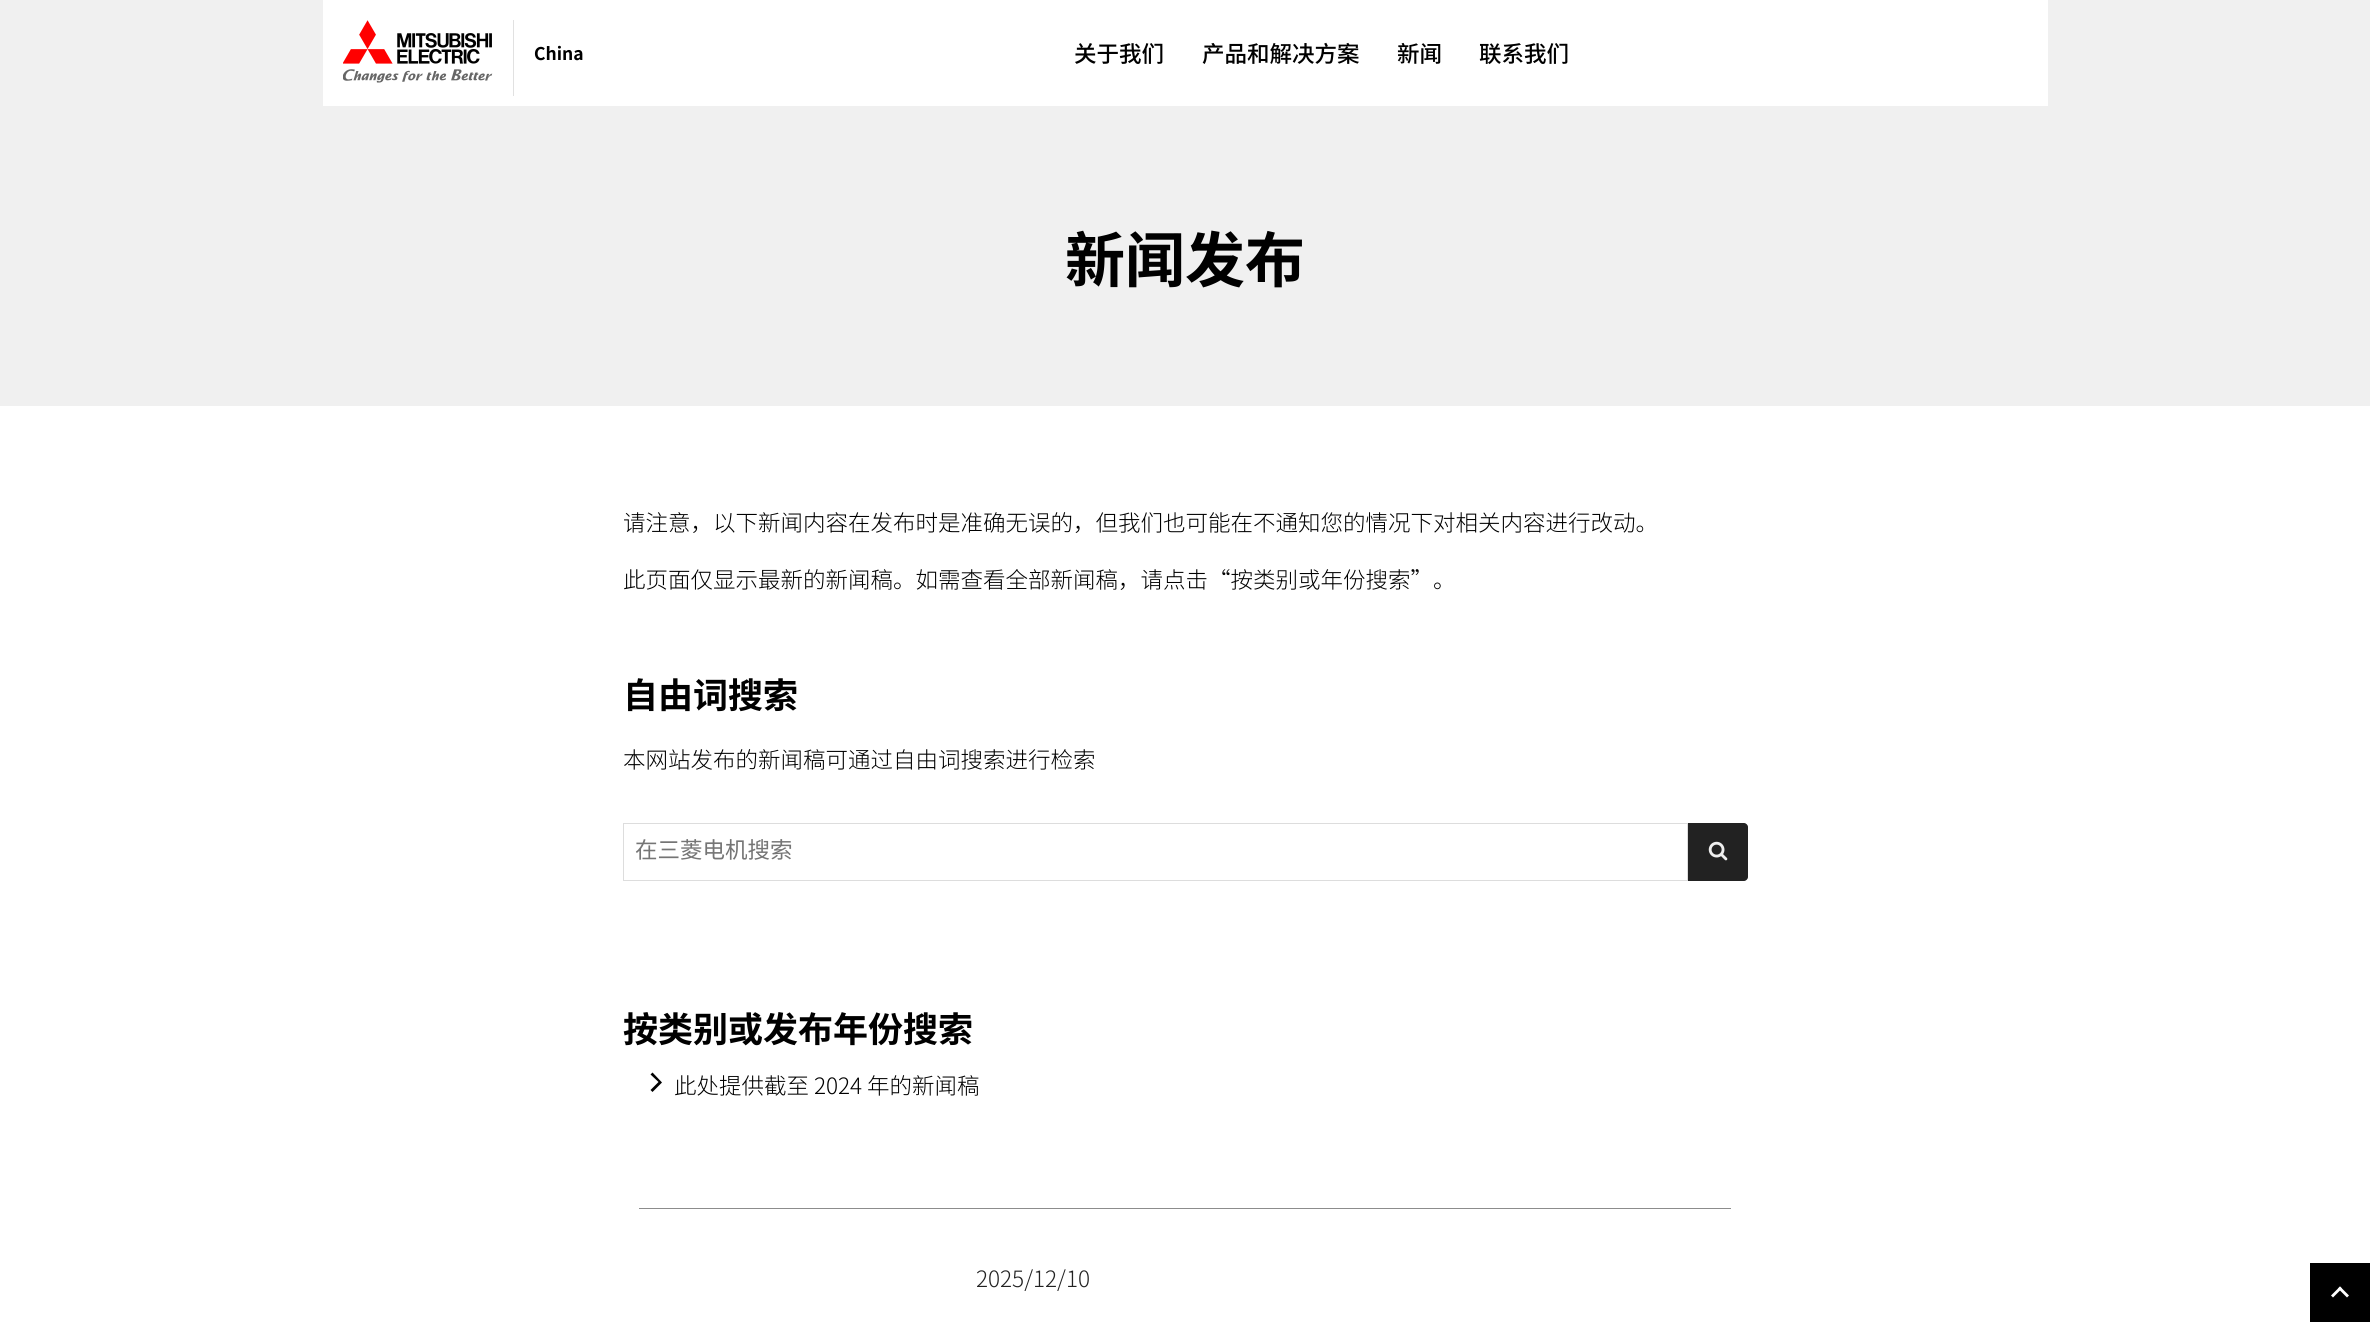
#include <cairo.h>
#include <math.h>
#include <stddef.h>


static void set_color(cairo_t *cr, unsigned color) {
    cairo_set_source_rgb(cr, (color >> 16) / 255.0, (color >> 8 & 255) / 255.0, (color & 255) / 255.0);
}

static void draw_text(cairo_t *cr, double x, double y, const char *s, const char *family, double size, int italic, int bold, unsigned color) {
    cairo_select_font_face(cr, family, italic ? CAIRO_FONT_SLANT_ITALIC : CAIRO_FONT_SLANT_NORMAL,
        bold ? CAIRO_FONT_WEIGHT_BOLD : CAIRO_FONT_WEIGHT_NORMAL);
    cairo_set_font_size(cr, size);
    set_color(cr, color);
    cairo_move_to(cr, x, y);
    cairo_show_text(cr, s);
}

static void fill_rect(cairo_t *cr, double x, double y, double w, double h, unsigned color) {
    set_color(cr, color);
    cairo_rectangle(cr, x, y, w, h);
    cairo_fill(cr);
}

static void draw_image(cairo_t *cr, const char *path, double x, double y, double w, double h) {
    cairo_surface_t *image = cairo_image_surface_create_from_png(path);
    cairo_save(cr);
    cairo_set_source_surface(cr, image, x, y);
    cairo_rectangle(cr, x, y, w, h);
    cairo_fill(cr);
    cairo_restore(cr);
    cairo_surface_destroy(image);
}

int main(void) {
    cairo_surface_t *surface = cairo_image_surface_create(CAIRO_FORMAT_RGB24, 2370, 1322);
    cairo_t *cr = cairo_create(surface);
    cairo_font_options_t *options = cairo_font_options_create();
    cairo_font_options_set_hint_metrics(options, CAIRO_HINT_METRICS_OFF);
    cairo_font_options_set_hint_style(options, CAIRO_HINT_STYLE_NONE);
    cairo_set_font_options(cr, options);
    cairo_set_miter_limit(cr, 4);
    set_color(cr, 0xFFFFFF);
    cairo_paint(cr);
    fill_rect(cr, 0, 0, 2370, 406, 0xF0F0F0);
    fill_rect(cr, 323, 0, 1725, 106, 0xFFFFFF);
    fill_rect(cr, 513, 20, 1, 76, 0xE1E1E1);
    draw_image(cr, "assets/img1.png", 343, 20, 150, 63);
    draw_text(cr, 534, 60, "China", "Noto Sans SC", 17.5, 0, 1, 0x000000);
    draw_text(cr, 1074, 62, "关于我们", "Noto Sans SC Medium", 22.5, 0, 0, 0x000000);
    draw_text(cr, 1202, 62, "产品和解决方案", "Noto Sans SC Medium", 22.5, 0, 0, 0x000000);
    draw_text(cr, 1397, 62, "新闻", "Noto Sans SC Medium", 22.5, 0, 0, 0x000000);
    draw_text(cr, 1479, 62, "联系我们", "Noto Sans SC Medium", 22.5, 0, 0, 0x000000);
    draw_text(cr, 1065, 282, "新闻发布", "Noto Sans SC", 60, 0, 1, 0x000000);
    draw_text(cr, 623, 531, "请注意，以下新闻内容在发布时是准确无误的，但我们也可能在不通知您的情况下对相关内容进行改动。", "Noto Sans SC Light", 22.5, 0, 0, 0x000000);
    draw_text(cr, 623, 588, "此页面仅显示最新的新闻稿。如需查看全部新闻稿，请点击“按类别或年份搜索”。", "Noto Sans SC Light", 22.5, 0, 0, 0x000000);
    draw_text(cr, 623, 708, "自由词搜索", "Noto Sans SC", 35, 0, 1, 0x000000);
    draw_text(cr, 623, 768, "本网站发布的新闻稿可通过自由词搜索进行检索", "Noto Sans SC Light", 22.5, 0, 0, 0x000000);
    cairo_rectangle(cr, 623.5, 823.5, 1064, 57);
    set_color(cr, 0xDDDDDD);
    cairo_set_line_width(cr, 1);
    cairo_stroke(cr);
    draw_text(cr, 635, 858, "在三菱电机搜索", "Noto Sans CJK SC", 22.5, 0, 0, 0x757575);
    set_color(cr, 0x222222);
    cairo_new_path(cr);
    cairo_move_to(cr, 1688, 823);
    cairo_line_to(cr, 1744, 823);
    cairo_curve_to(cr, 1746, 823, 1748, 825, 1748, 827);
    cairo_line_to(cr, 1748, 877);
    cairo_curve_to(cr, 1748, 879, 1746, 881, 1744, 881);
    cairo_line_to(cr, 1688, 881);
    cairo_close_path(cr);
    cairo_fill(cr);
    draw_image(cr, "assets/img2.png", 1708, 841, 20, 20);
    draw_text(cr, 623, 1042, "按类别或发布年份搜索", "Noto Sans SC", 35, 0, 1, 0x000000);
    cairo_new_path(cr);
    cairo_move_to(cr, 650.5, 1090);
    cairo_line_to(cr, 652.5, 1092);
    cairo_line_to(cr, 662, 1082.5);
    cairo_line_to(cr, 652.5, 1072.5);
    cairo_line_to(cr, 650.5, 1074.5);
    cairo_line_to(cr, 658.5, 1082);
    cairo_close_path(cr);
    cairo_fill(cr);
    draw_text(cr, 674, 1094, "此处提供截至 2024 年的新闻稿", "Noto Sans SC Light", 22.5, 0, 0, 0x000000);
    fill_rect(cr, 639, 1208, 1092, 1, 0x8C8C8C);
    draw_text(cr, 976, 1287, "2025/12/10", "Noto Sans SC Light", 22.5, 0, 0, 0x222222);
    fill_rect(cr, 2310, 1263, 60, 59, 0x000000);
    set_color(cr, 0xFFFFFF);
    cairo_new_path(cr);
    cairo_move_to(cr, 2340, 1286.5);
    cairo_line_to(cr, 2349, 1295.5);
    cairo_line_to(cr, 2347, 1297.5);
    cairo_line_to(cr, 2338, 1288.5);
    cairo_close_path(cr);
    cairo_fill(cr);
    cairo_new_path(cr);
    cairo_move_to(cr, 2340, 1286.5);
    cairo_line_to(cr, 2342, 1288.5);
    cairo_line_to(cr, 2333, 1297.5);
    cairo_line_to(cr, 2331, 1295.5);
    cairo_close_path(cr);
    cairo_fill(cr);
    cairo_surface_write_to_png(surface, "output.png");
    cairo_font_options_destroy(options);
    cairo_destroy(cr);
    cairo_surface_destroy(surface);
    return 0;
}
